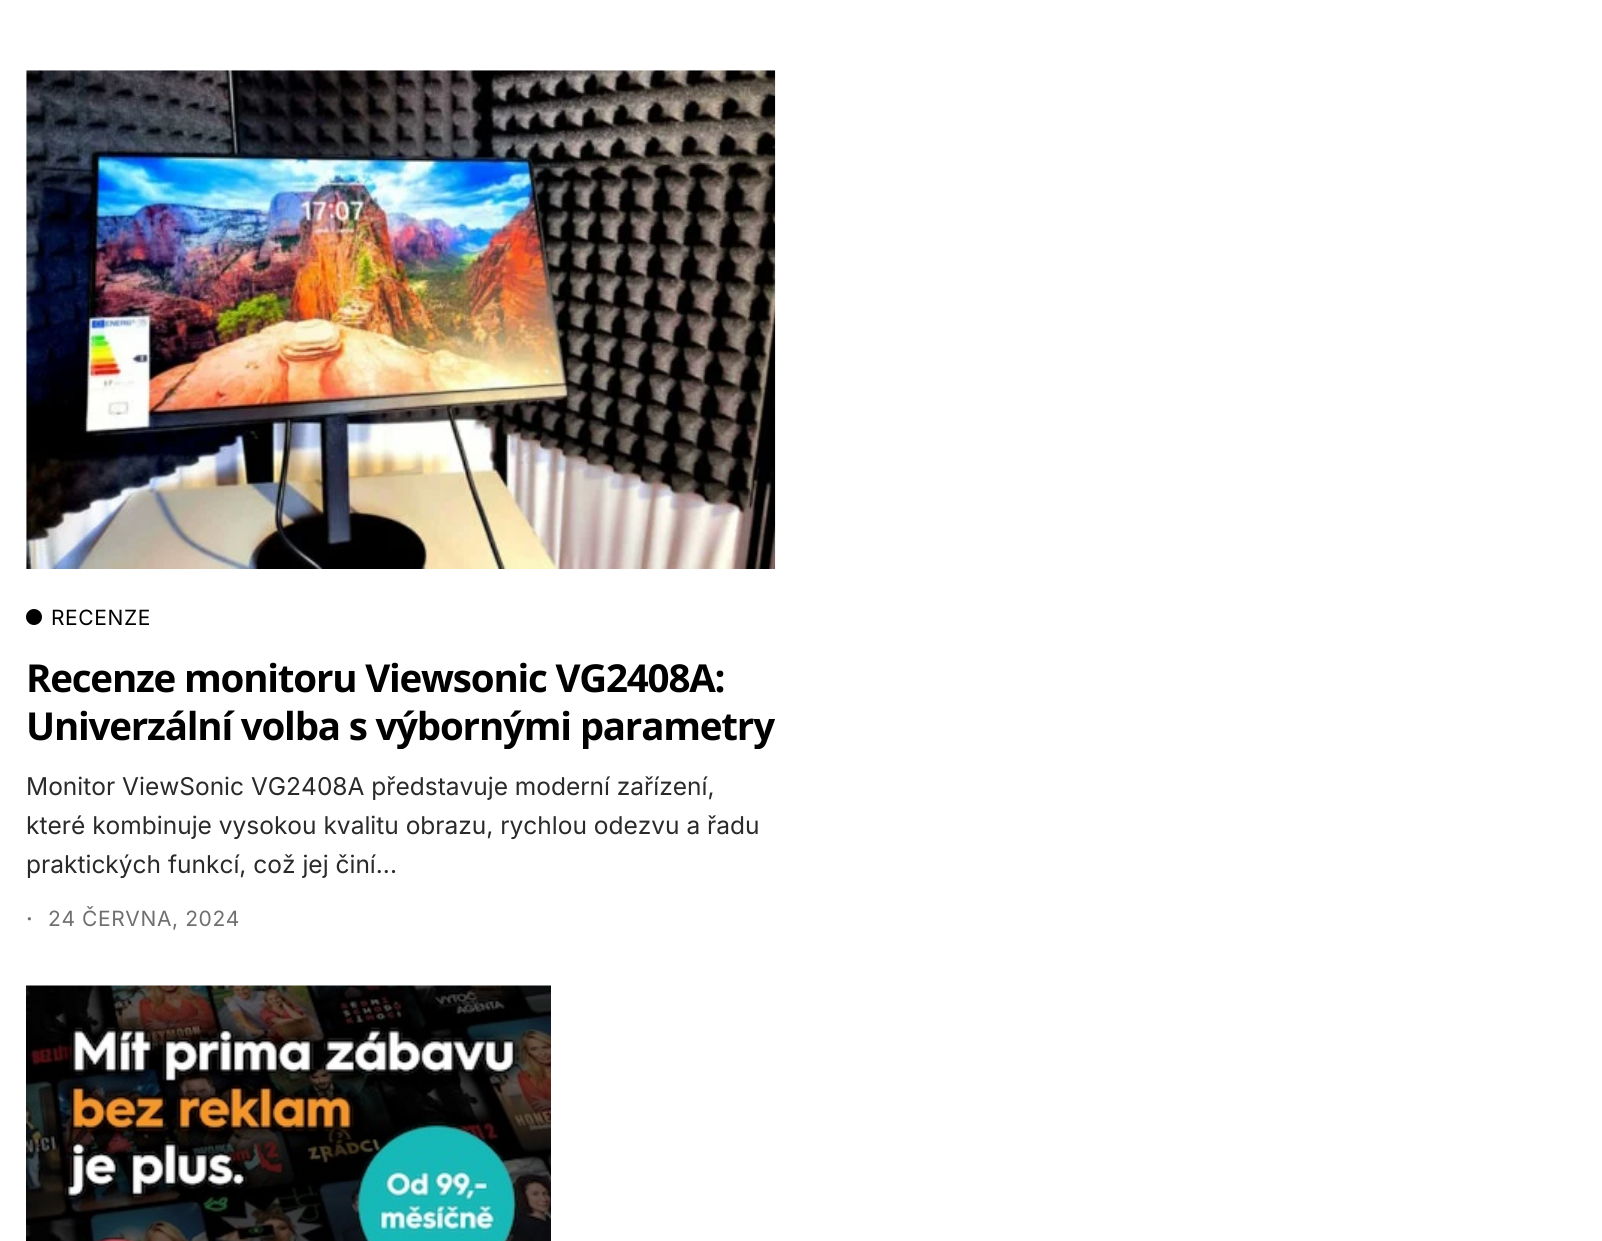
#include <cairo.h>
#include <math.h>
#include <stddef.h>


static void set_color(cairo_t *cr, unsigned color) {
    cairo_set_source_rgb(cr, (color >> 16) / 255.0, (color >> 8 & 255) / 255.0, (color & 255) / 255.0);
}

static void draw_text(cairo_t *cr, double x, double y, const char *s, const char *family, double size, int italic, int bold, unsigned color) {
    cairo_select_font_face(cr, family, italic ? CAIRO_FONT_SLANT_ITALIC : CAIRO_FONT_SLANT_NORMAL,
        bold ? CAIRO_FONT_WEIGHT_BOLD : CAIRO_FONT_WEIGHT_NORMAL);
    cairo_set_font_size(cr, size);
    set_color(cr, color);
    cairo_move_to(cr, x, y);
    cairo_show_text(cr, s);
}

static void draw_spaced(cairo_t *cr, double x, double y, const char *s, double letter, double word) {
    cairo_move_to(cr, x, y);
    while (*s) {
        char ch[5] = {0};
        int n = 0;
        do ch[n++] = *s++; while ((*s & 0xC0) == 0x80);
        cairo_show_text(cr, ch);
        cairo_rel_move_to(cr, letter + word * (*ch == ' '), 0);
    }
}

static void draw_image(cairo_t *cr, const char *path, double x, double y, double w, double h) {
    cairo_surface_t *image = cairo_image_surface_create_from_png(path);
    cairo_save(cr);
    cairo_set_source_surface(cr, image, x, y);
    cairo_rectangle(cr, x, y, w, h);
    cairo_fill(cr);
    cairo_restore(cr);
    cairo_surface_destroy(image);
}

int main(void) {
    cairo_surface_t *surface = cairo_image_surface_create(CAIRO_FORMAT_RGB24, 1602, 1241);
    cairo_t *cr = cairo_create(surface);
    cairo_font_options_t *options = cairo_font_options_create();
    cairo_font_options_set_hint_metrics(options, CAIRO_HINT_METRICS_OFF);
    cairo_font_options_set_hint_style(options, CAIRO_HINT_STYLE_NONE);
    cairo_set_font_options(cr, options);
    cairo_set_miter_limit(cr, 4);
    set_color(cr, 0xFFFFFF);
    cairo_paint(cr);
    draw_image(cr, "assets/img1.png", 26, 70, 750, 499);
    set_color(cr, 0x000000);
    cairo_arc(cr, 34, 617, 8, 0, 2 * M_PI);
    cairo_fill(cr);
    cairo_select_font_face(cr, "Inter", CAIRO_FONT_SLANT_NORMAL, CAIRO_FONT_WEIGHT_NORMAL);
    cairo_set_font_size(cr, 21);
    draw_spaced(cr, 51, 625, "RECENZE", 0.6, 0);
    cairo_select_font_face(cr, "Open Sans", CAIRO_FONT_SLANT_NORMAL, CAIRO_FONT_WEIGHT_BOLD);
    cairo_set_font_size(cr, 38.5);
    draw_spaced(cr, 26, 692, "Recenze monitoru Viewsonic VG2408A:", -1.2, 0);
    cairo_save(cr);
    cairo_rectangle(cr, 26, 653, 749, 96);
    cairo_clip(cr);
    draw_spaced(cr, 26, 740, "Univerzální volba s výbornými parametry", -1.2, 0);
    cairo_restore(cr);
    draw_text(cr, 26, 795, "Monitor ViewSonic VG2408A představuje moderní zařízení,", "Inter", 24.5, 0, 0, 0x2A2A2A);
    draw_text(cr, 26, 834, "které kombinuje vysokou kvalitu obrazu, rychlou odezvu a řadu", "Inter", 24.5, 0, 0, 0x2A2A2A);
    draw_text(cr, 26, 873, "praktických funkcí, což jej činí...", "Inter", 24.5, 0, 0, 0x2A2A2A);
    cairo_select_font_face(cr, "Inter SemiBold", CAIRO_FONT_SLANT_NORMAL, CAIRO_FONT_WEIGHT_NORMAL);
    cairo_set_font_size(cr, 21);
    set_color(cr, 0x6F6F6F);
    draw_spaced(cr, 26, 926, "·", 0.6, 0);
    cairo_select_font_face(cr, "Inter", CAIRO_FONT_SLANT_NORMAL, CAIRO_FONT_WEIGHT_NORMAL);
    draw_spaced(cr, 48, 926, "24 ČERVNA, 2024", 0.6, 0);
    draw_image(cr, "assets/img2.png", 26, 985, 525, 256);
    cairo_surface_write_to_png(surface, "output.png");
    cairo_font_options_destroy(options);
    cairo_destroy(cr);
    cairo_surface_destroy(surface);
    return 0;
}
